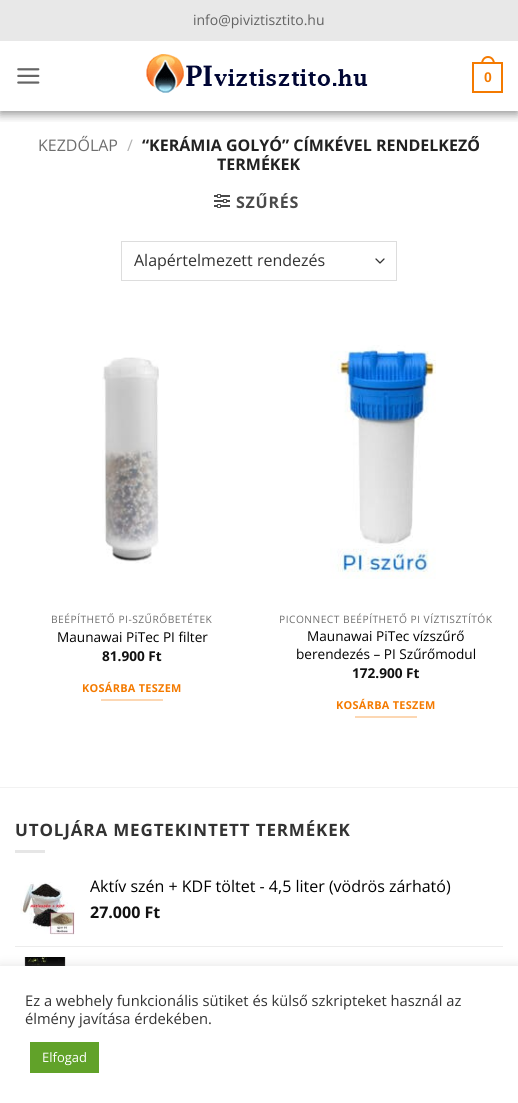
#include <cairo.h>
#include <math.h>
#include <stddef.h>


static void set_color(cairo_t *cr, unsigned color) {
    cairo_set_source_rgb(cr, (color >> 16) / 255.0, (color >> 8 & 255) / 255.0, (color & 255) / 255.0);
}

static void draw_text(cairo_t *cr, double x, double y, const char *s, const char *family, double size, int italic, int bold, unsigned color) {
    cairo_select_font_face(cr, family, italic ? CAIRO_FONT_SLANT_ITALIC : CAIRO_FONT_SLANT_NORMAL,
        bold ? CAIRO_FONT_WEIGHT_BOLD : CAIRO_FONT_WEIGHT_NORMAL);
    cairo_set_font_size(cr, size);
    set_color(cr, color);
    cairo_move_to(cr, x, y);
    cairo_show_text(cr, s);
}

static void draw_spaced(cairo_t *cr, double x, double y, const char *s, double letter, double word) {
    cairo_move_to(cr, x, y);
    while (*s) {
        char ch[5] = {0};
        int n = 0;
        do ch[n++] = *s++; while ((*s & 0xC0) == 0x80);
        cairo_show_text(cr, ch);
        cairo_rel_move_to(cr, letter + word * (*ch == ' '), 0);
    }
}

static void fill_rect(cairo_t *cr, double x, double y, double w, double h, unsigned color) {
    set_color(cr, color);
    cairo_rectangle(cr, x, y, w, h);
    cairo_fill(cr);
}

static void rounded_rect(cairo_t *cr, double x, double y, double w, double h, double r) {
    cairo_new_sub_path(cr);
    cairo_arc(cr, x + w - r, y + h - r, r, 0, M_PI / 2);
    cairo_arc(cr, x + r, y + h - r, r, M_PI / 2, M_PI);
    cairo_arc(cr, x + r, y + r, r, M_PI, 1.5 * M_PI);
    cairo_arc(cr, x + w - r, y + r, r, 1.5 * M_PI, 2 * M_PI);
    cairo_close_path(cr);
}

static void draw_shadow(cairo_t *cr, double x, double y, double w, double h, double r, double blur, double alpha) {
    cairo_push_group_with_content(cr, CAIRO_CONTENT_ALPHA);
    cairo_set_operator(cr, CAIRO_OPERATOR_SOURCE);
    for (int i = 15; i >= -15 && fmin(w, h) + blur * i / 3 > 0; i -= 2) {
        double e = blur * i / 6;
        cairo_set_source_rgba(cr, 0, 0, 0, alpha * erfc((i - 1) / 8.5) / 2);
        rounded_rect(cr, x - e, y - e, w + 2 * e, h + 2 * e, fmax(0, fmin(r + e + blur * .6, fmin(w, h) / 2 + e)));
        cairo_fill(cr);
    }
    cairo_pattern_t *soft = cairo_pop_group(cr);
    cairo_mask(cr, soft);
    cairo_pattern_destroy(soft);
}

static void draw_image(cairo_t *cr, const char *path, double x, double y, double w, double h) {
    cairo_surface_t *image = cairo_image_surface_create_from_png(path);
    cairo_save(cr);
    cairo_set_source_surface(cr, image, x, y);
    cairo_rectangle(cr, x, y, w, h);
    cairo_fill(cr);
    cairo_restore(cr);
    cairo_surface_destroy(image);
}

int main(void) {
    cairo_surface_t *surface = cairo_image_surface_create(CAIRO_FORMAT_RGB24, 518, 1103);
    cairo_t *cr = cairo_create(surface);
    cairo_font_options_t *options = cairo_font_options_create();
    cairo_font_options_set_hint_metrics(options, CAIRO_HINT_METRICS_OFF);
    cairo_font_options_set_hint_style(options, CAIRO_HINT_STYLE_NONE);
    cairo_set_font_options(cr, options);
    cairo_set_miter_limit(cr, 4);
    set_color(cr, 0xFFFFFF);
    cairo_paint(cr);
    cairo_save(cr);
    cairo_rectangle(cr, 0, 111, 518, 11);
    cairo_clip(cr);
    set_color(cr, 0x000000);
    draw_shadow(cr, 0, 3, 518, 111, 0, 5, 0.43);
    cairo_restore(cr);
    fill_rect(cr, 0, 0, 518, 41, 0xE8E8E8);
    draw_text(cr, 193, 25, "info@piviztisztito.hu", "Open Sans", 14, 0, 0, 0x626262);
    draw_image(cr, "assets/img1.png", 17, 68, 23, 16);
    draw_image(cr, "assets/img2.png", 146, 54, 222, 39);
    cairo_rectangle(cr, 473, 63, 29, 29);
    set_color(cr, 0xF47A00);
    cairo_stroke(cr);
    cairo_set_fill_rule(cr, CAIRO_FILL_RULE_EVEN_ODD);
    cairo_new_path(cr);
    cairo_move_to(cr, 488, 56);
    cairo_curve_to(cr, 492.5, 56, 495, 60, 495, 64);
    cairo_line_to(cr, 481, 64);
    cairo_curve_to(cr, 481, 60, 483.5, 56, 488, 56);
    cairo_close_path(cr);
    cairo_move_to(cr, 488, 58);
    cairo_curve_to(cr, 491.5, 58, 493, 61, 493, 64);
    cairo_line_to(cr, 483, 64);
    cairo_curve_to(cr, 483, 61, 484.5, 58, 488, 58);
    cairo_close_path(cr);
    cairo_fill(cr);
    draw_text(cr, 484, 82, "0", "Liberation Sans", 14, 0, 1, 0xF47A00);
    draw_text(cr, 38, 151, "KEZDŐLAP", "Open Sans", 16, 0, 0, 0x6E6E6E);
    draw_text(cr, 127, 151, "/", "Open Sans", 16, 0, 0, 0xB2B2B2);
    draw_text(cr, 142, 151, "“KERÁMIA GOLYÓ” CÍMKÉVEL RENDELKEZŐ", "Open Sans", 16, 0, 1, 0x222222);
    draw_text(cr, 217, 170, "TERMÉKEK", "Open Sans", 16, 0, 1, 0x222222);
    draw_image(cr, "assets/img3.png", 214, 194, 16, 14);
    set_color(cr, 0x4A4A4A);
    draw_spaced(cr, 236, 208, "SZŰRÉS", 0.75, 0);
    cairo_new_path(cr);
    cairo_move_to(cr, 376, 259);
    cairo_line_to(cr, 380, 263);
    cairo_line_to(cr, 384, 259);
    set_color(cr, 0x333333);
    cairo_set_line_width(cr, 1.3);
    cairo_set_line_cap(cr, CAIRO_LINE_CAP_ROUND);
    cairo_set_line_join(cr, CAIRO_LINE_JOIN_ROUND);
    cairo_stroke(cr);
    cairo_rectangle(cr, 121.5, 241.5, 275, 39);
    set_color(cr, 0xDDDDDD);
    cairo_set_line_width(cr, 1);
    cairo_set_line_cap(cr, CAIRO_LINE_CAP_BUTT);
    cairo_set_line_join(cr, CAIRO_LINE_JOIN_MITER);
    cairo_stroke(cr);
    draw_text(cr, 134, 266, "Alapértelmezett rendezés", "Open Sans", 16, 0, 0, 0x333333);
    draw_image(cr, "assets/img4.png", 102, 357, 57, 207);
    cairo_set_font_size(cr, 10.2);
    set_color(cr, 0x6E6E6E);
    draw_spaced(cr, 51, 623, "BEÉPÍTHETŐ PI-SZŰRŐBETÉTEK", 0.5, 0);
    draw_text(cr, 57, 642, "Maunawai PiTec PI filter", "Open Sans", 13.6, 0, 0, 0x000000);
    draw_text(cr, 102, 661, "81.900 Ft", "Open Sans", 13.6, 0, 1, 0x111111);
    cairo_set_font_size(cr, 10.9);
    set_color(cr, 0xF47A00);
    draw_spaced(cr, 82, 692, "KOSÁRBA TESZEM", 0.3, 0);
    fill_rect(cr, 101, 699, 62, 2, 0xFCD7B3);
    draw_image(cr, "assets/img5.png", 330, 345, 106, 234);
    cairo_select_font_face(cr, "Open Sans", CAIRO_FONT_SLANT_NORMAL, CAIRO_FONT_WEIGHT_NORMAL);
    cairo_set_font_size(cr, 10.2);
    set_color(cr, 0x6E6E6E);
    draw_spaced(cr, 279, 623, "PICONNECT BEÉPÍTHETŐ PI VÍZTISZTÍTÓK", 0.5, 0);
    draw_text(cr, 307, 641, "Maunawai PiTec vízszűrő", "Open Sans", 13.6, 0, 0, 0x000000);
    draw_text(cr, 296, 659, "berendezés – PI Szűrőmodul", "Open Sans", 13.6, 0, 0, 0x000000);
    draw_text(cr, 352, 678, "172.900 Ft", "Open Sans", 13.6, 0, 1, 0x111111);
    cairo_set_font_size(cr, 10.9);
    set_color(cr, 0xF47A00);
    draw_spaced(cr, 336, 709, "KOSÁRBA TESZEM", 0.3, 0);
    fill_rect(cr, 355, 716, 62, 2, 0xFCD7B3);
    fill_rect(cr, 0, 787, 518, 1, 0xF2F2F2);
    cairo_set_font_size(cr, 17);
    set_color(cr, 0x333333);
    draw_spaced(cr, 15, 836, "UTOLJÁRA MEGTEKINTETT TERMÉKEK", 0.85, 0);
    fill_rect(cr, 15, 850, 30, 3, 0xE6E6E6);
    draw_image(cr, "assets/img6.png", 20, 882, 55, 53);
    draw_text(cr, 90, 892, "Aktív szén + KDF töltet - 4,5 liter (vödrös zárható)", "Open Sans", 16, 0, 0, 0x000000);
    draw_text(cr, 90, 918, "27.000 Ft", "Open Sans", 16, 0, 1, 0x111111);
    fill_rect(cr, 15, 946, 488, 1, 0xECECEC);
    draw_image(cr, "assets/img7.png", 24, 957, 44, 9);
    set_color(cr, 0xACABAB);
    draw_shadow(cr, 0, 965, 518, 137, 0, 5, 0.3);
    fill_rect(cr, 0, 966, 518, 137, 0xFFFFFF);
    draw_text(cr, 25, 1006, "Ez a webhely funkcionális sütiket és külső szkripteket használ az", "Open Sans", 14.7, 0, 0, 0x333333);
    draw_text(cr, 25, 1024, "élmény javítása érdekében.", "Open Sans", 14.7, 0, 0, 0x333333);
    fill_rect(cr, 30, 1042, 69, 31, 0x61A229);
    draw_text(cr, 42, 1062, "Elfogad", "Open Sans", 13, 0, 0, 0xFFFFFF);
    cairo_surface_write_to_png(surface, "output.png");
    cairo_font_options_destroy(options);
    cairo_destroy(cr);
    cairo_surface_destroy(surface);
    return 0;
}
